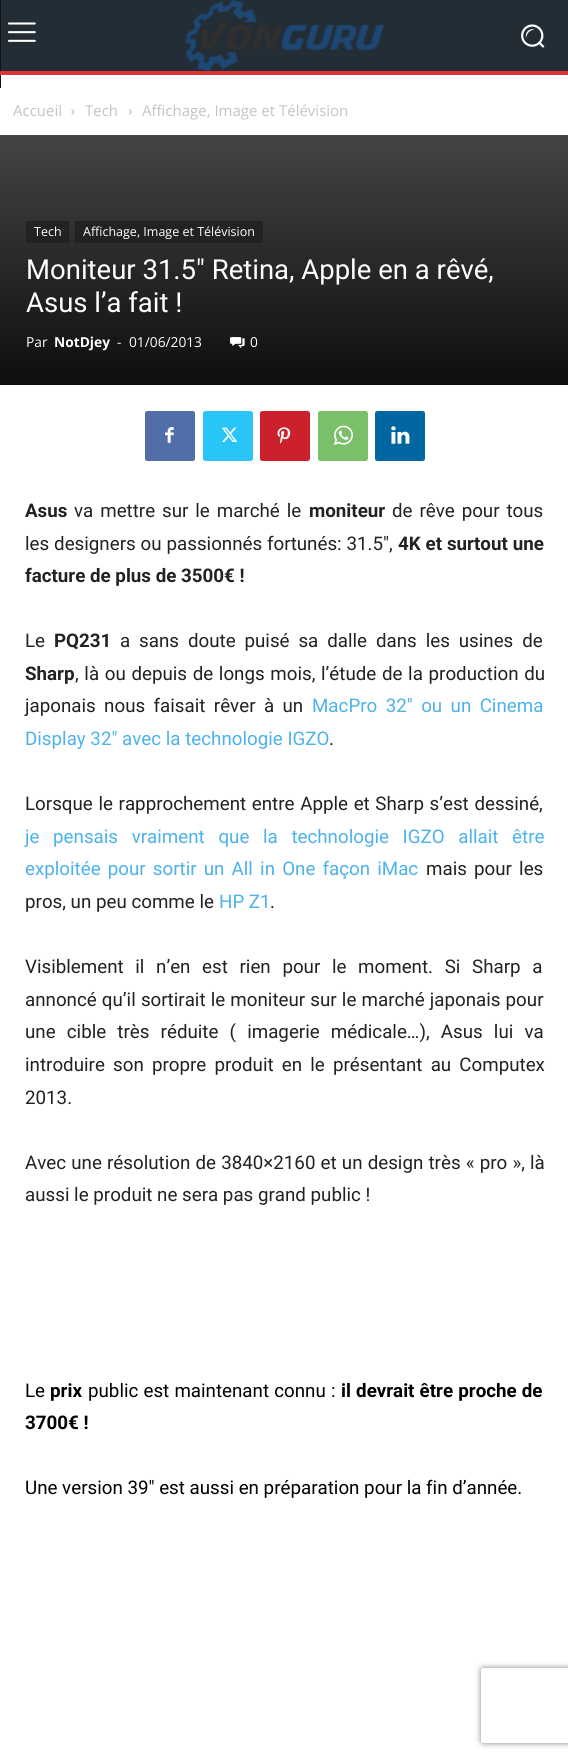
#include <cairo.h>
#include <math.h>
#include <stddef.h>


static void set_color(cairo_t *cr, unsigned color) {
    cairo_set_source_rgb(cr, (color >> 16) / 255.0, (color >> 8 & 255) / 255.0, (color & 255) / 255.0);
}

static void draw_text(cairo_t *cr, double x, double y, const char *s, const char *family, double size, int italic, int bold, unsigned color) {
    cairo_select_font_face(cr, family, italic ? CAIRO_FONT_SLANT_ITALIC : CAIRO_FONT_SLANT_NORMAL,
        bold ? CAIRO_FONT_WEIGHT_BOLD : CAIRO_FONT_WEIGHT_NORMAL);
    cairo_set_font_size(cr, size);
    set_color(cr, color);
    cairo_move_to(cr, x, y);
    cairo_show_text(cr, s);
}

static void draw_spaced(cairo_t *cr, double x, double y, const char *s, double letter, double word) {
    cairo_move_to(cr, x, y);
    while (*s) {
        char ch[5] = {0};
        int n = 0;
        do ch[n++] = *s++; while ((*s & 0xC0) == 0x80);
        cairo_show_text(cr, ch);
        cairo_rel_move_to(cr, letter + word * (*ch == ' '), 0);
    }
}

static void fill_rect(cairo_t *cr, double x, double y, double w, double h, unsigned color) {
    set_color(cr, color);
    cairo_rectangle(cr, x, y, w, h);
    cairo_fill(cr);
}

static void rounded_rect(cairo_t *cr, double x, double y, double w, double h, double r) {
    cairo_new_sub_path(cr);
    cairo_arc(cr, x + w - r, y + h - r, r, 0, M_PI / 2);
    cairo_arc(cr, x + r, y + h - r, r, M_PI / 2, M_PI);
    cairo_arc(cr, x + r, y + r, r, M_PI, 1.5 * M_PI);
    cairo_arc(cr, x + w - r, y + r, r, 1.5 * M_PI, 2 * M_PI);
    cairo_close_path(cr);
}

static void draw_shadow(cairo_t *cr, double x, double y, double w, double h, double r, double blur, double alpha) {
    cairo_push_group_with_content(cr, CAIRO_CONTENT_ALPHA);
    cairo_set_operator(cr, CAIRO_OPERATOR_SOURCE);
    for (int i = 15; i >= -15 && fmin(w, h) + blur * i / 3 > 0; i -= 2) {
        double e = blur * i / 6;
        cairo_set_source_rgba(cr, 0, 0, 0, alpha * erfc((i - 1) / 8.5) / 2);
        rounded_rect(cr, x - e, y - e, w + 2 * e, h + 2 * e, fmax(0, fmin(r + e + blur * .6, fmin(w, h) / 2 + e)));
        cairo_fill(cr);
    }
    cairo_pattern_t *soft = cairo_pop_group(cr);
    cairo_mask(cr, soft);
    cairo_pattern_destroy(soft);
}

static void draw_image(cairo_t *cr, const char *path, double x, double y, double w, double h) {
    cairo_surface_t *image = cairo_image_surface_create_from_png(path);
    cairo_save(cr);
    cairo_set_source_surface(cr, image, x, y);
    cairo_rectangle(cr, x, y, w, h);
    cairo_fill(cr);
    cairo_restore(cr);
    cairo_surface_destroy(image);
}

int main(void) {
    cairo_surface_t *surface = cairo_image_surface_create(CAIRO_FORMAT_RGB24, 568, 1760);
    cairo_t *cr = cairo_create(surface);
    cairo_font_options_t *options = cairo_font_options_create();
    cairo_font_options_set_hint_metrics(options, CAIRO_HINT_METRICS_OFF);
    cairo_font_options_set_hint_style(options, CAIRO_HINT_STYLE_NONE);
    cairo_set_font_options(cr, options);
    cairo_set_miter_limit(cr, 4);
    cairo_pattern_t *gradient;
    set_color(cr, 0x111111);
    cairo_paint(cr);
    fill_rect(cr, 1, 0, 567, 71, 0x232D35);
    draw_image(cr, "assets/img1.png", 7, 22, 29, 20);
    draw_image(cr, "assets/img2.png", 184, 0, 200, 71);
    draw_image(cr, "assets/img3.png", 521, 24, 24, 24);
    fill_rect(cr, 0, 71, 568, 4, 0xDD3333);
    fill_rect(cr, 1, 75, 567, 13, 0xFFFFFF);
    fill_rect(cr, 0, 88, 568, 1672, 0xFFFFFF);
    draw_text(cr, 13, 116, "Accueil", "Open Sans", 15, 0, 0, 0xC3C3C3);
    draw_image(cr, "assets/img4.png", 71, 109, 4, 6);
    draw_text(cr, 85, 116, "Tech", "Open Sans", 15, 0, 0, 0xC3C3C3);
    draw_image(cr, "assets/img5.png", 128, 109, 4, 6);
    draw_text(cr, 142, 116, "Affichage, Image et Télévision", "Open Sans", 15, 0, 0, 0xC3C3C3);
    gradient = cairo_pattern_create_linear(284, 135, 284, 385);
    cairo_pattern_add_color_stop_rgba(gradient, 0, 0.267, 0.267, 0.267, 1);
    cairo_pattern_add_color_stop_rgba(gradient, 1, 0.055, 0.055, 0.055, 1);
    cairo_set_source(cr, gradient);
    cairo_pattern_destroy(gradient);
    cairo_rectangle(cr, 0, 135, 568, 250);
    cairo_fill(cr);
    fill_rect(cr, 26, 221, 43, 22, 0x222222);
    draw_text(cr, 34, 236, "Tech", "Open Sans", 12.5, 0, 0, 0xFFFFFF);
    fill_rect(cr, 75, 221, 188, 22, 0x222222);
    draw_text(cr, 83, 236, "Affichage, Image et Télévision", "Open Sans", 12.5, 0, 0, 0xFFFFFF);
    draw_text(cr, 26, 279, "Moniteur 31.5″ Retina, Apple en a rêvé,", "Roboto", 27.5, 0, 0, 0xFFFFFF);
    draw_text(cr, 26, 312, "Asus l’a fait !", "Roboto", 27.5, 0, 0, 0xFFFFFF);
    draw_text(cr, 26, 347, "Par", "Open Sans", 13.75, 0, 0, 0xFFFFFF);
    draw_text(cr, 54, 347, "NotDjey", "Open Sans", 13.75, 0, 1, 0xFFFFFF);
    draw_text(cr, 117, 347, "-", "Open Sans", 13.75, 0, 0, 0xFFFFFF);
    draw_text(cr, 129, 347, "01/06/2013", "Open Sans", 13.75, 0, 0, 0xFFFFFF);
    draw_image(cr, "assets/img6.png", 230, 337, 15, 12);
    draw_text(cr, 250, 347, "0", "Open Sans", 13.75, 0, 0, 0xFFFFFF);
    set_color(cr, 0x516EAB);
    rounded_rect(cr, 145, 411, 50, 50, 2.5);
    cairo_fill(cr);
    draw_image(cr, "assets/img7.png", 165, 427, 9, 16);
    set_color(cr, 0x29C5F6);
    rounded_rect(cr, 203, 411, 50, 50, 2.5);
    cairo_fill(cr);
    draw_image(cr, "assets/img8.png", 221, 427, 17, 15);
    set_color(cr, 0xCA212A);
    rounded_rect(cr, 260, 411, 50, 50, 2.5);
    cairo_fill(cr);
    draw_image(cr, "assets/img9.png", 277, 427, 14, 17);
    set_color(cr, 0x7BBF6A);
    rounded_rect(cr, 318, 411, 50, 50, 2.5);
    cairo_fill(cr);
    draw_image(cr, "assets/img10.png", 333, 425, 20, 20);
    set_color(cr, 0x0266A0);
    rounded_rect(cr, 375, 411, 50, 50, 2.5);
    cairo_fill(cr);
    draw_image(cr, "assets/img11.png", 391, 426, 19, 18);
    draw_text(cr, 25, 517, "Asus", "Roboto", 18.75, 0, 1, 0x222222);
    cairo_select_font_face(cr, "Roboto", CAIRO_FONT_SLANT_NORMAL, CAIRO_FONT_WEIGHT_NORMAL);
    draw_spaced(cr, 74, 517, "va mettre sur le marché le", 0, 2.25);
    draw_text(cr, 309, 517, "moniteur", "Roboto", 18.75, 0, 1, 0x222222);
    cairo_select_font_face(cr, "Roboto", CAIRO_FONT_SLANT_NORMAL, CAIRO_FONT_WEIGHT_NORMAL);
    draw_spaced(cr, 392, 517, "de rêve pour tous", 0, 2.25);
    draw_spaced(cr, 25, 550, "les designers ou passionnés fortunés: 31.5″,", 0, 0.25);
    cairo_select_font_face(cr, "Roboto", CAIRO_FONT_SLANT_NORMAL, CAIRO_FONT_WEIGHT_BOLD);
    draw_spaced(cr, 398, 550, "4K et surtout une", 0, 0.25);
    draw_text(cr, 25, 582, "facture de plus de 3500€ !", "Roboto", 18.75, 0, 1, 0x222222);
    draw_text(cr, 25, 647, "Le", "Roboto", 18.75, 0, 0, 0x222222);
    draw_text(cr, 54, 647, "PQ231", "Roboto", 18.75, 0, 1, 0x222222);
    cairo_select_font_face(cr, "Roboto", CAIRO_FONT_SLANT_NORMAL, CAIRO_FONT_WEIGHT_NORMAL);
    draw_spaced(cr, 120, 647, "a sans doute puisé sa dalle dans les usines de", 0, 4.25);
    draw_text(cr, 25, 680, "Sharp", "Roboto", 18.75, 0, 1, 0x222222);
    cairo_select_font_face(cr, "Roboto", CAIRO_FONT_SLANT_NORMAL, CAIRO_FONT_WEIGHT_NORMAL);
    draw_spaced(cr, 75, 680, ", là ou depuis de longs mois, l’étude de la production du", 0, 1);
    draw_spaced(cr, 25, 712, "japonais nous faisait rêver à un", 0, 3.75);
    set_color(cr, 0x4DB2EC);
    draw_spaced(cr, 312, 712, "MacPro 32″ ou un Cinema", 0, 3.75);
    draw_text(cr, 25, 745, "Display 32″ avec la technologie IGZO", "Roboto", 18.75, 0, 0, 0x4DB2EC);
    draw_text(cr, 329, 745, ".", "Roboto", 18.75, 0, 0, 0x222222);
    draw_spaced(cr, 25, 810, "Lorsque le rapprochement entre Apple et Sharp s’est dessiné,", 0, 1);
    set_color(cr, 0x4DB2EC);
    draw_spaced(cr, 25, 843, "je pensais vraiment que la technologie IGZO allait être", 0, 9);
    draw_spaced(cr, 25, 875, "exploitée pour sortir un All in One façon iMac", 0, 2.5);
    set_color(cr, 0x222222);
    draw_spaced(cr, 426, 875, "mais pour les", 0, 2.5);
    draw_text(cr, 25, 908, "pros, un peu comme le", "Roboto", 18.75, 0, 0, 0x222222);
    draw_text(cr, 219, 908, "HP Z1", "Roboto", 18.75, 0, 0, 0x4DB2EC);
    draw_text(cr, 270, 908, ".", "Roboto", 18.75, 0, 0, 0x222222);
    draw_spaced(cr, 25, 973, "Visiblement il n’en est rien pour le moment. Si Sharp a", 0, 7);
    draw_spaced(cr, 25, 1006, "annoncé qu’il sortirait le moniteur sur le marché japonais pour", 0, 0.5);
    draw_spaced(cr, 25, 1038, "une cible très réduite ( imagerie médicale…), Asus lui va", 0, 6.5);
    draw_spaced(cr, 25, 1071, "introduire son propre produit en le présentant au Computex", 0, 3.5);
    draw_text(cr, 25, 1104, "2013.", "Roboto", 18.75, 0, 0, 0x222222);
    draw_spaced(cr, 25, 1169, "Avec une résolution de 3840×2160 et un design très « pro », là", 0, 0.5);
    draw_text(cr, 25, 1201, "aussi le produit ne sera pas grand public !", "Roboto", 18.75, 0, 0, 0x222222);
    draw_text(cr, 25, 1397, "Le", "Roboto", 18.75, 0, 0, 0x000000);
    draw_text(cr, 50, 1397, "prix", "Roboto", 18.75, 0, 1, 0x000000);
    cairo_select_font_face(cr, "Roboto", CAIRO_FONT_SLANT_NORMAL, CAIRO_FONT_WEIGHT_NORMAL);
    draw_spaced(cr, 88, 1397, "public est maintenant connu :", 0, 0.5);
    cairo_select_font_face(cr, "Roboto", CAIRO_FONT_SLANT_NORMAL, CAIRO_FONT_WEIGHT_BOLD);
    draw_spaced(cr, 341, 1397, "il devrait être proche de", 0, 0.5);
    draw_text(cr, 25, 1429, "3700€ !", "Roboto", 18.75, 0, 1, 0x000000);
    draw_text(cr, 25, 1494, "Une version 39″ est aussi en préparation pour la fin d’année.", "Roboto", 18.75, 0, 0, 0x000000);
    cairo_save(cr);
    cairo_set_fill_rule(cr, CAIRO_FILL_RULE_EVEN_ODD);
    cairo_new_path(cr);
    cairo_move_to(cr, 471, 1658);
    cairo_line_to(cr, 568, 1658);
    cairo_line_to(cr, 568, 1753);
    cairo_line_to(cr, 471, 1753);
    cairo_close_path(cr);
    cairo_move_to(cr, 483.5, 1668);
    cairo_line_to(cr, 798.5, 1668);
    cairo_curve_to(cr, 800, 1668, 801, 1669, 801, 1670.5);
    cairo_line_to(cr, 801, 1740.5);
    cairo_curve_to(cr, 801, 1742, 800, 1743, 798.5, 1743);
    cairo_line_to(cr, 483.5, 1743);
    cairo_curve_to(cr, 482, 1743, 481, 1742, 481, 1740.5);
    cairo_line_to(cr, 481, 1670.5);
    cairo_curve_to(cr, 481, 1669, 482, 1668, 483.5, 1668);
    cairo_close_path(cr);
    cairo_clip(cr);
    set_color(cr, 0x808080);
    draw_shadow(cr, 481, 1668, 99, 75, 2.5, 3, 1);
    cairo_restore(cr);
    cairo_surface_write_to_png(surface, "output.png");
    cairo_font_options_destroy(options);
    cairo_destroy(cr);
    cairo_surface_destroy(surface);
    return 0;
}
